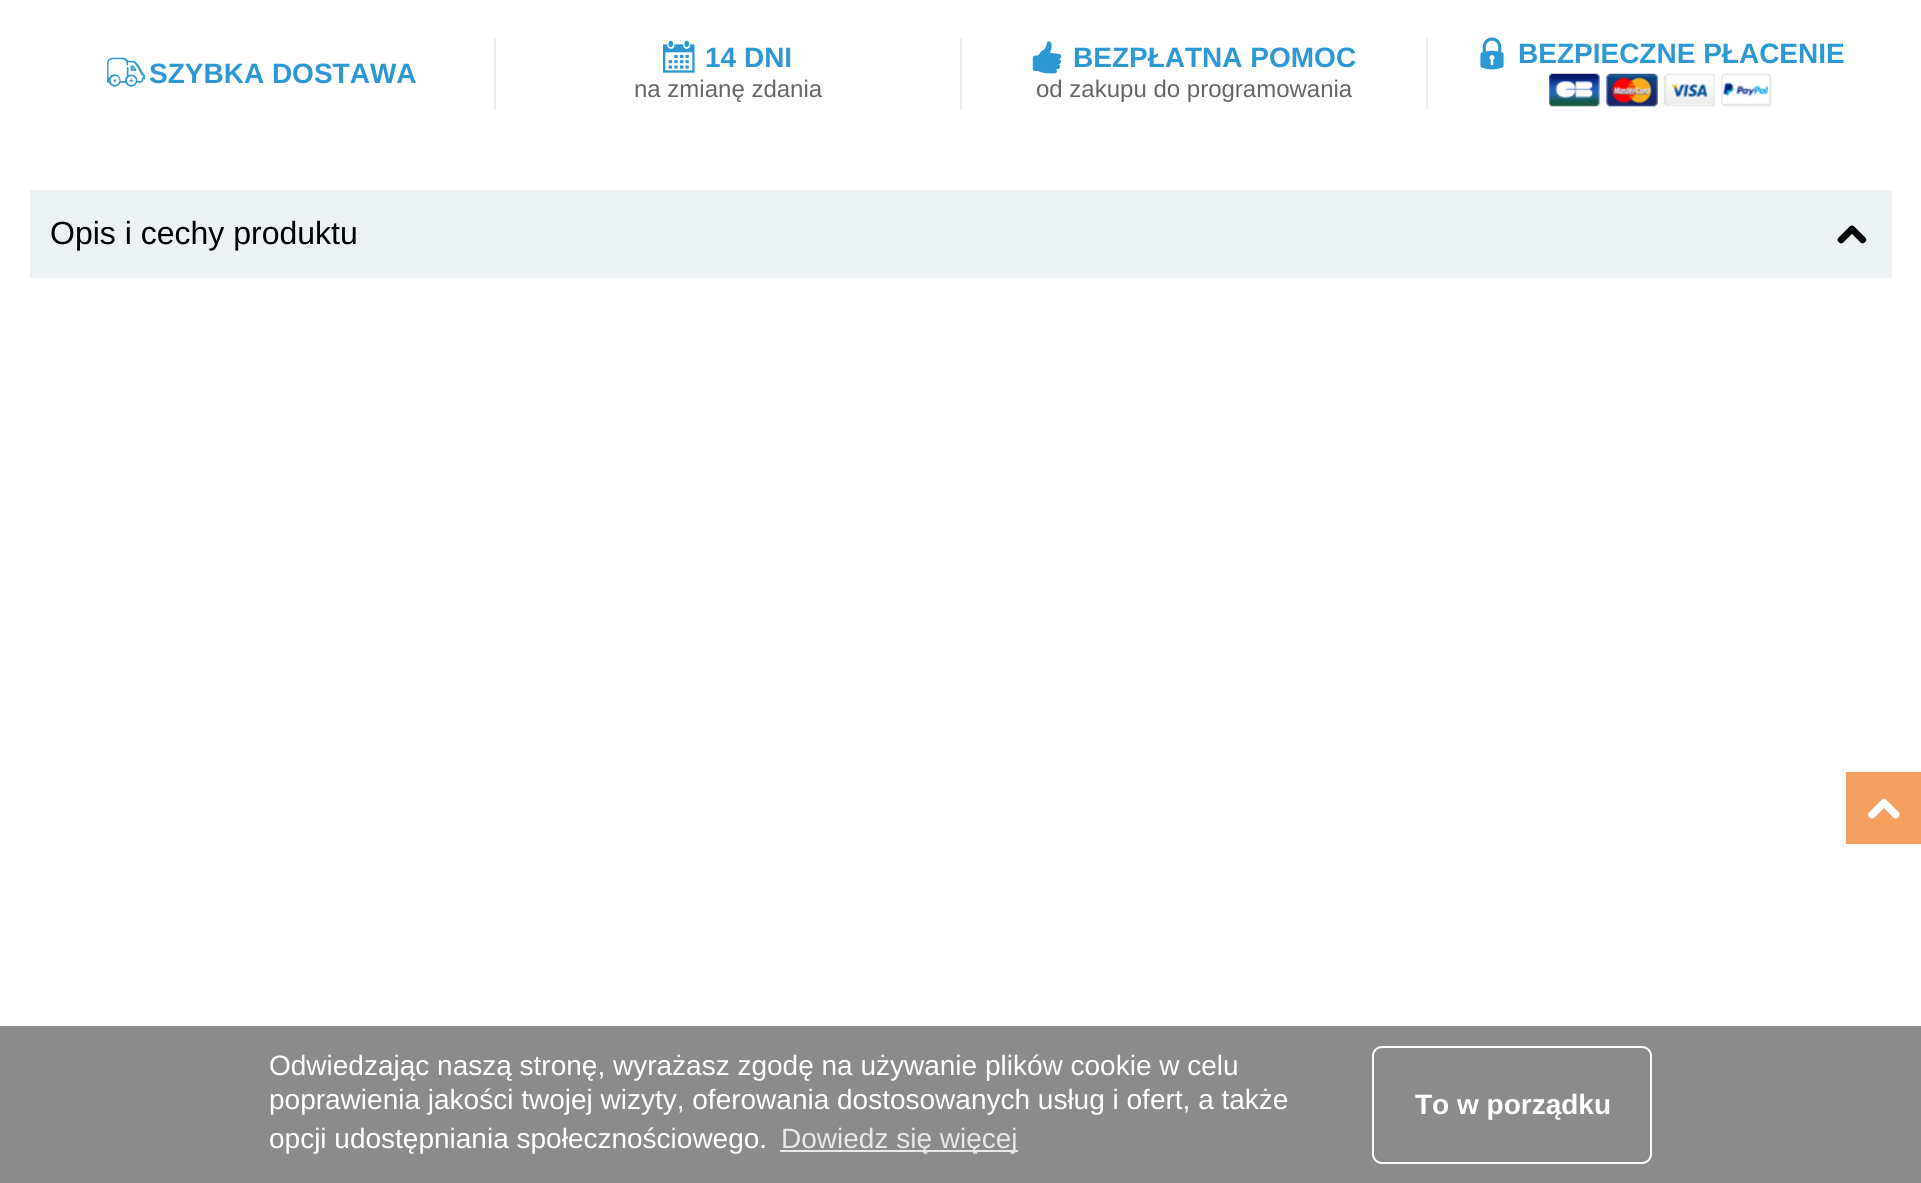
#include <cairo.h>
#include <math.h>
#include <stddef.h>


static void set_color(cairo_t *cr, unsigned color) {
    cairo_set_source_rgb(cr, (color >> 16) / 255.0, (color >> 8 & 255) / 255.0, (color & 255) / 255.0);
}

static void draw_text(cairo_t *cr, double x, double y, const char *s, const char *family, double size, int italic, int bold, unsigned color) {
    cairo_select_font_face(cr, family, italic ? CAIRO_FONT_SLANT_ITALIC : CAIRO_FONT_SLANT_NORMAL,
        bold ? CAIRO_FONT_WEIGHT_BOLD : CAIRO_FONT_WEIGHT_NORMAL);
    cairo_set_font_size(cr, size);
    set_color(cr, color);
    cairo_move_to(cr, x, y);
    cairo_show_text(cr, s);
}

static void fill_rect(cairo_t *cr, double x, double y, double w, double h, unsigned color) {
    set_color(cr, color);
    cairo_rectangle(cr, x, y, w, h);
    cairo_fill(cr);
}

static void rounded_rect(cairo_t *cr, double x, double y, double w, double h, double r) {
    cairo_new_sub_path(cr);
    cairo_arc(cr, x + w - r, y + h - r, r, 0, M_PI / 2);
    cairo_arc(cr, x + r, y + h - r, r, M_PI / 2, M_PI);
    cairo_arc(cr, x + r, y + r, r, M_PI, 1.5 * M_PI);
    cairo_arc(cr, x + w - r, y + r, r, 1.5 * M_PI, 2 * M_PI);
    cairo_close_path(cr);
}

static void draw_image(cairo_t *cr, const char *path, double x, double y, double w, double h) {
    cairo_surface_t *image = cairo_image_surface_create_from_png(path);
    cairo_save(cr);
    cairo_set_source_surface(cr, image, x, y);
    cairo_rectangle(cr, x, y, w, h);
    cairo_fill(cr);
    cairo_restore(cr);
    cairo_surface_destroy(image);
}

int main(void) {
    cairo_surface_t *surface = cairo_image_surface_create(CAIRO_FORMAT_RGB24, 1921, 1183);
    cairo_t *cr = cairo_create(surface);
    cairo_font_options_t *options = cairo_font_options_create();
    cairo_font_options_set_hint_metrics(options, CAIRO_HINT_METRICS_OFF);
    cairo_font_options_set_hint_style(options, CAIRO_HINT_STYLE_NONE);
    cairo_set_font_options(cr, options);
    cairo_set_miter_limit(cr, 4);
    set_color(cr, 0xFFFFFF);
    cairo_paint(cr);
    fill_rect(cr, 494, 38, 2, 72, 0xEEEEEE);
    draw_text(cr, 107, 83, "9", "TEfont", 32, 0, 0, 0x2E98D4);
    draw_text(cr, 149, 83, "SZYBKA DOSTAWA", "Liberation Sans", 28, 0, 1, 0x2E98D4);
    fill_rect(cr, 960, 38, 2, 72, 0xEEEEEE);
    draw_text(cr, 663, 67, "=", "TEfont", 32, 0, 0, 0x2E98D4);
    draw_text(cr, 705, 67, "14 DNI", "Liberation Sans", 28, 0, 1, 0x2E98D4);
    draw_text(cr, 634, 97, "na zmianę zdania", "Liberation Sans", 24, 0, 0, 0x666666);
    fill_rect(cr, 1426, 38, 2, 72, 0xEEEEEE);
    draw_text(cr, 1031, 67, "4", "TEfont", 32, 0, 0, 0x2E98D4);
    draw_text(cr, 1073, 67, "BEZPŁATNA POMOC", "Liberation Sans", 28, 0, 1, 0x2E98D4);
    draw_text(cr, 1036, 97, "od zakupu do programowania", "Liberation Sans", 24, 0, 0, 0x666666);
    draw_text(cr, 1476, 63, "3", "TEfont", 32, 0, 0, 0x2E98D4);
    draw_text(cr, 1518, 63, "BEZPIECZNE PŁACENIE", "Liberation Sans", 28, 0, 1, 0x2E98D4);
    draw_image(cr, "assets/img1.png", 1549, 73, 223, 34);
    fill_rect(cr, 30, 190, 1862, 88, 0xECF1F3);
    draw_text(cr, 50, 244, "Opis i cechy produktu", "Liberation Sans", 32, 0, 0, 0x000000);
    draw_image(cr, "assets/img2.png", 1837, 225, 30, 19);
    fill_rect(cr, 1846, 772, 75, 72, 0xF29F5F);
    draw_image(cr, "assets/img3.png", 1868, 798, 32, 21);
    fill_rect(cr, 0, 1026, 1921, 157, 0x8B8B8B);
    draw_text(cr, 269, 1075, "Odwiedzając naszą stronę, wyrażasz zgodę na używanie plików cookie w celu", "Liberation Sans", 28, 0, 0, 0xFFFFFF);
    draw_text(cr, 269, 1109, "poprawienia jakości twojej wizyty, oferowania dostosowanych usług i ofert, a także", "Liberation Sans", 28, 0, 0, 0xFFFFFF);
    draw_text(cr, 269, 1148, "opcji udostępniania społecznościowego.", "Liberation Sans", 28, 0, 0, 0xFFFFFF);
    fill_rect(cr, 780, 1150, 238, 2, 0xE8E8E8);
    draw_text(cr, 781, 1148, "Dowiedz się więcej", "Liberation Sans", 28, 0, 0, 0xE8E8E8);
    rounded_rect(cr, 1373, 1047, 278, 116, 9);
    set_color(cr, 0xFFFFFF);
    cairo_stroke(cr);
    draw_text(cr, 1415, 1114, "To w porządku", "Liberation Sans", 28, 0, 1, 0xFFFFFF);
    cairo_surface_write_to_png(surface, "output.png");
    cairo_font_options_destroy(options);
    cairo_destroy(cr);
    cairo_surface_destroy(surface);
    return 0;
}
